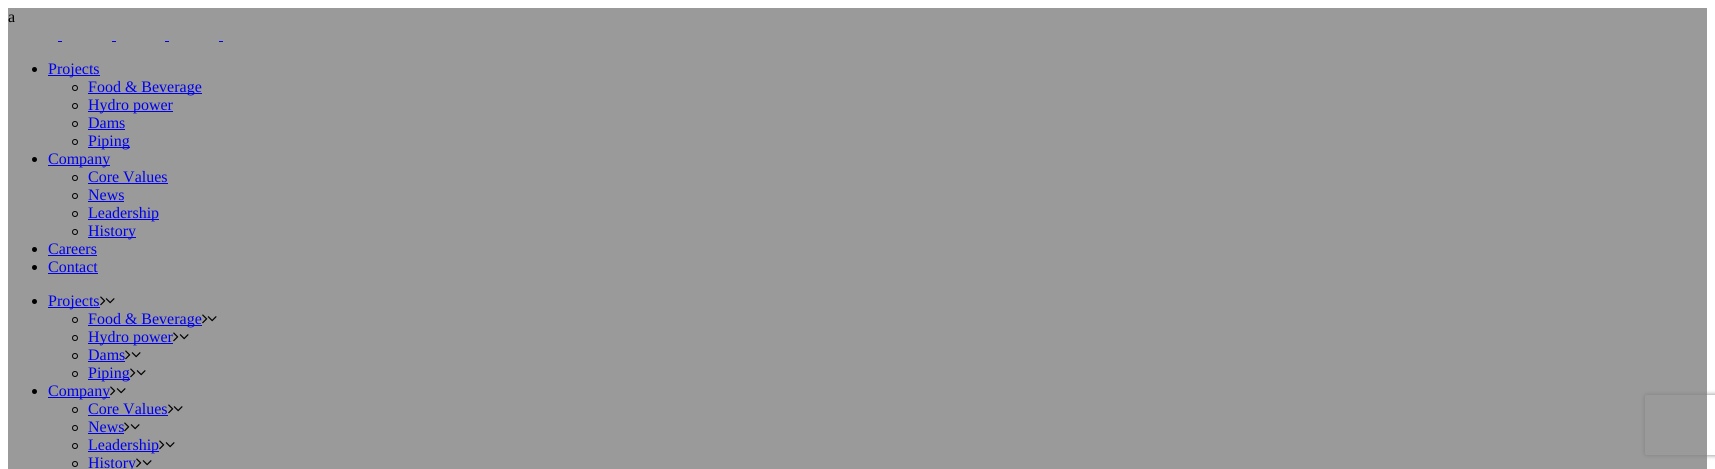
#include <cairo.h>
#include <math.h>
#include <stddef.h>


static void set_color(cairo_t *cr, unsigned color) {
    cairo_set_source_rgb(cr, (color >> 16) / 255.0, (color >> 8 & 255) / 255.0, (color & 255) / 255.0);
}

static void draw_text(cairo_t *cr, double x, double y, const char *s, const char *family, double size, int italic, int bold, unsigned color) {
    cairo_select_font_face(cr, family, italic ? CAIRO_FONT_SLANT_ITALIC : CAIRO_FONT_SLANT_NORMAL,
        bold ? CAIRO_FONT_WEIGHT_BOLD : CAIRO_FONT_WEIGHT_NORMAL);
    cairo_set_font_size(cr, size);
    set_color(cr, color);
    cairo_move_to(cr, x, y);
    cairo_show_text(cr, s);
}

static void fill_rect(cairo_t *cr, double x, double y, double w, double h, unsigned color) {
    set_color(cr, color);
    cairo_rectangle(cr, x, y, w, h);
    cairo_fill(cr);
}

static void rounded_rect(cairo_t *cr, double x, double y, double w, double h, double r) {
    cairo_new_sub_path(cr);
    cairo_arc(cr, x + w - r, y + h - r, r, 0, M_PI / 2);
    cairo_arc(cr, x + r, y + h - r, r, M_PI / 2, M_PI);
    cairo_arc(cr, x + r, y + r, r, M_PI, 1.5 * M_PI);
    cairo_arc(cr, x + w - r, y + r, r, 1.5 * M_PI, 2 * M_PI);
    cairo_close_path(cr);
}

static void draw_shadow(cairo_t *cr, double x, double y, double w, double h, double r, double blur, double alpha) {
    cairo_push_group_with_content(cr, CAIRO_CONTENT_ALPHA);
    cairo_set_operator(cr, CAIRO_OPERATOR_SOURCE);
    for (int i = 15; i >= -15 && fmin(w, h) + blur * i / 3 > 0; i -= 2) {
        double e = blur * i / 6;
        cairo_set_source_rgba(cr, 0, 0, 0, alpha * erfc((i - 1) / 8.5) / 2);
        rounded_rect(cr, x - e, y - e, w + 2 * e, h + 2 * e, fmax(0, fmin(r + e + blur * .6, fmin(w, h) / 2 + e)));
        cairo_fill(cr);
    }
    cairo_pattern_t *soft = cairo_pop_group(cr);
    cairo_mask(cr, soft);
    cairo_pattern_destroy(soft);
}

static void draw_image(cairo_t *cr, const char *path, double x, double y, double w, double h) {
    cairo_surface_t *image = cairo_image_surface_create_from_png(path);
    cairo_save(cr);
    cairo_set_source_surface(cr, image, x, y);
    cairo_rectangle(cr, x, y, w, h);
    cairo_fill(cr);
    cairo_restore(cr);
    cairo_surface_destroy(image);
}

int main(void) {
    cairo_surface_t *surface = cairo_image_surface_create(CAIRO_FORMAT_RGB24, 1715, 469);
    cairo_t *cr = cairo_create(surface);
    cairo_font_options_t *options = cairo_font_options_create();
    cairo_font_options_set_hint_metrics(options, CAIRO_HINT_METRICS_OFF);
    cairo_font_options_set_hint_style(options, CAIRO_HINT_STYLE_NONE);
    cairo_set_font_options(cr, options);
    cairo_set_miter_limit(cr, 4);
    set_color(cr, 0xFFFFFF);
    cairo_paint(cr);
    fill_rect(cr, 8, 8, 1699, 461, 0x9A9A9A);
    draw_text(cr, 8, 22, "a", "Liberation Serif", 16, 0, 0, 0x000000);
    fill_rect(cr, 58, 41, 4, 1, 0x0000EE);
    fill_rect(cr, 112, 41, 4, 1, 0x0000EE);
    fill_rect(cr, 165, 41, 4, 1, 0x0000EE);
    fill_rect(cr, 219, 41, 4, 1, 0x0000EE);
    set_color(cr, 0x000000);
    cairo_new_path(cr);
    cairo_arc(cr, 34.5, 69.5, 2.5, 0, 2 * M_PI);
    cairo_fill(cr);
    fill_rect(cr, 48, 75, 52, 1, 0x0000EE);
    draw_text(cr, 48, 74, "Projects", "Liberation Serif", 16, 0, 0, 0x0000EE);
    cairo_new_path(cr);
    cairo_arc(cr, 75, 88, 2.5, 0, 2 * M_PI);
    set_color(cr, 0x000000);
    cairo_set_line_width(cr, 1);
    cairo_stroke(cr);
    fill_rect(cr, 88, 93, 114, 1, 0x0000EE);
    draw_text(cr, 88, 92, "Food & Beverage", "Liberation Serif", 16, 0, 0, 0x0000EE);
    cairo_new_path(cr);
    cairo_arc(cr, 75, 106, 2.5, 0, 2 * M_PI);
    set_color(cr, 0x000000);
    cairo_stroke(cr);
    fill_rect(cr, 88, 111, 85, 1, 0x0000EE);
    draw_text(cr, 88, 110, "Hydro power", "Liberation Serif", 16, 0, 0, 0x0000EE);
    cairo_new_path(cr);
    cairo_arc(cr, 75, 124, 2.5, 0, 2 * M_PI);
    set_color(cr, 0x000000);
    cairo_stroke(cr);
    draw_text(cr, 88, 128, "Dams", "Liberation Serif", 16, 0, 0, 0x0000EE);
    fill_rect(cr, 88, 129, 37, 1, 0x0000EE);
    cairo_new_path(cr);
    cairo_arc(cr, 75, 142, 2.5, 0, 2 * M_PI);
    set_color(cr, 0x000000);
    cairo_stroke(cr);
    fill_rect(cr, 88, 147, 42, 1, 0x0000EE);
    draw_text(cr, 88, 146, "Piping", "Liberation Serif", 16, 0, 0, 0x0000EE);
    set_color(cr, 0x000000);
    cairo_new_path(cr);
    cairo_arc(cr, 34.5, 159.5, 2.5, 0, 2 * M_PI);
    cairo_fill(cr);
    fill_rect(cr, 48, 165, 62, 1, 0x0000EE);
    draw_text(cr, 48, 164, "Company", "Liberation Serif", 16, 0, 0, 0x0000EE);
    cairo_new_path(cr);
    cairo_arc(cr, 75, 178, 2.5, 0, 2 * M_PI);
    set_color(cr, 0x000000);
    cairo_stroke(cr);
    draw_text(cr, 88, 182, "Core Values", "Liberation Serif", 16, 0, 0, 0x0000EE);
    fill_rect(cr, 88, 183, 80, 1, 0x0000EE);
    cairo_new_path(cr);
    cairo_arc(cr, 75, 196, 2.5, 0, 2 * M_PI);
    set_color(cr, 0x000000);
    cairo_stroke(cr);
    draw_text(cr, 88, 200, "News", "Liberation Serif", 16, 0, 0, 0x0000EE);
    fill_rect(cr, 88, 201, 36, 1, 0x0000EE);
    cairo_new_path(cr);
    cairo_arc(cr, 75, 214, 2.5, 0, 2 * M_PI);
    set_color(cr, 0x000000);
    cairo_stroke(cr);
    fill_rect(cr, 88, 219, 71, 1, 0x0000EE);
    draw_text(cr, 88, 218, "Leadership", "Liberation Serif", 16, 0, 0, 0x0000EE);
    cairo_new_path(cr);
    cairo_arc(cr, 75, 232, 2.5, 0, 2 * M_PI);
    set_color(cr, 0x000000);
    cairo_stroke(cr);
    fill_rect(cr, 88, 237, 48, 1, 0x0000EE);
    draw_text(cr, 88, 236, "History", "Liberation Serif", 16, 0, 0, 0x0000EE);
    set_color(cr, 0x000000);
    cairo_new_path(cr);
    cairo_arc(cr, 34.5, 249.5, 2.5, 0, 2 * M_PI);
    cairo_fill(cr);
    draw_text(cr, 48, 254, "Careers", "Liberation Serif", 16, 0, 0, 0x0000EE);
    fill_rect(cr, 48, 255, 49, 1, 0x0000EE);
    set_color(cr, 0x000000);
    cairo_new_path(cr);
    cairo_arc(cr, 34.5, 267.5, 2.5, 0, 2 * M_PI);
    cairo_fill(cr);
    draw_text(cr, 48, 272, "Contact", "Liberation Serif", 16, 0, 0, 0x0000EE);
    fill_rect(cr, 48, 273, 50, 1, 0x0000EE);
    set_color(cr, 0x000000);
    cairo_new_path(cr);
    cairo_arc(cr, 34.5, 301.5, 2.5, 0, 2 * M_PI);
    cairo_fill(cr);
    fill_rect(cr, 48, 307, 52, 1, 0x0000EE);
    draw_text(cr, 48, 306, "Projects", "Liberation Serif", 16, 0, 0, 0x0000EE);
    draw_image(cr, "assets/img1.png", 100, 296, 6, 10);
    draw_image(cr, "assets/img2.png", 105, 298, 10, 6);
    cairo_arc(cr, 75, 320, 2.5, 0, 2 * M_PI);
    set_color(cr, 0x000000);
    cairo_stroke(cr);
    fill_rect(cr, 88, 325, 114, 1, 0x0000EE);
    draw_text(cr, 88, 324, "Food & Beverage", "Liberation Serif", 16, 0, 0, 0x0000EE);
    draw_image(cr, "assets/img1.png", 202, 314, 6, 10);
    draw_image(cr, "assets/img2.png", 207, 316, 10, 6);
    cairo_arc(cr, 75, 338, 2.5, 0, 2 * M_PI);
    set_color(cr, 0x000000);
    cairo_stroke(cr);
    fill_rect(cr, 88, 343, 85, 1, 0x0000EE);
    draw_text(cr, 88, 342, "Hydro power", "Liberation Serif", 16, 0, 0, 0x0000EE);
    draw_image(cr, "assets/img1.png", 173, 332, 6, 10);
    draw_image(cr, "assets/img3.png", 179, 334, 10, 6);
    cairo_arc(cr, 75, 356, 2.5, 0, 2 * M_PI);
    set_color(cr, 0x000000);
    cairo_stroke(cr);
    draw_text(cr, 88, 360, "Dams", "Liberation Serif", 16, 0, 0, 0x0000EE);
    fill_rect(cr, 88, 361, 37, 1, 0x0000EE);
    draw_image(cr, "assets/img1.png", 125, 350, 6, 10);
    draw_image(cr, "assets/img3.png", 131, 352, 10, 6);
    cairo_arc(cr, 75, 374, 2.5, 0, 2 * M_PI);
    set_color(cr, 0x000000);
    cairo_stroke(cr);
    fill_rect(cr, 88, 379, 42, 1, 0x0000EE);
    draw_text(cr, 88, 378, "Piping", "Liberation Serif", 16, 0, 0, 0x0000EE);
    draw_image(cr, "assets/img1.png", 130, 368, 6, 10);
    draw_image(cr, "assets/img3.png", 136, 370, 10, 6);
    set_color(cr, 0x000000);
    cairo_arc(cr, 34.5, 391.5, 2.5, 0, 2 * M_PI);
    cairo_fill(cr);
    fill_rect(cr, 48, 397, 62, 1, 0x0000EE);
    draw_text(cr, 48, 396, "Company", "Liberation Serif", 16, 0, 0, 0x0000EE);
    draw_image(cr, "assets/img4.png", 110, 386, 6, 10);
    draw_image(cr, "assets/img3.png", 116, 388, 10, 6);
    cairo_arc(cr, 75, 410, 2.5, 0, 2 * M_PI);
    set_color(cr, 0x000000);
    cairo_stroke(cr);
    draw_text(cr, 88, 414, "Core Values", "Liberation Serif", 16, 0, 0, 0x0000EE);
    fill_rect(cr, 88, 415, 80, 1, 0x0000EE);
    draw_image(cr, "assets/img1.png", 168, 404, 6, 10);
    draw_image(cr, "assets/img2.png", 173, 406, 10, 6);
    cairo_arc(cr, 75, 428, 2.5, 0, 2 * M_PI);
    set_color(cr, 0x000000);
    cairo_stroke(cr);
    draw_text(cr, 88, 432, "News", "Liberation Serif", 16, 0, 0, 0x0000EE);
    fill_rect(cr, 88, 433, 36, 1, 0x0000EE);
    draw_image(cr, "assets/img1.png", 124, 422, 6, 10);
    draw_image(cr, "assets/img3.png", 130, 424, 10, 6);
    cairo_arc(cr, 75, 446, 2.5, 0, 2 * M_PI);
    set_color(cr, 0x000000);
    cairo_stroke(cr);
    fill_rect(cr, 88, 451, 71, 1, 0x0000EE);
    draw_text(cr, 88, 450, "Leadership", "Liberation Serif", 16, 0, 0, 0x0000EE);
    draw_image(cr, "assets/img1.png", 159, 440, 6, 10);
    draw_image(cr, "assets/img3.png", 165, 442, 10, 6);
    cairo_arc(cr, 75, 464, 2.5, 0, 2 * M_PI);
    set_color(cr, 0x000000);
    cairo_stroke(cr);
    draw_text(cr, 88, 468, "History", "Liberation Serif", 16, 0, 0, 0x0000EE);
    draw_image(cr, "assets/img1.png", 136, 458, 6, 10);
    draw_image(cr, "assets/img3.png", 142, 460, 10, 6);
    cairo_save(cr);
    cairo_set_fill_rule(cr, CAIRO_FILL_RULE_EVEN_ODD);
    cairo_new_path(cr);
    cairo_move_to(cr, 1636, 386);
    cairo_line_to(cr, 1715, 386);
    cairo_line_to(cr, 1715, 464);
    cairo_line_to(cr, 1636, 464);
    cairo_close_path(cr);
    cairo_move_to(cr, 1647, 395);
    cairo_line_to(cr, 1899, 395);
    cairo_curve_to(cr, 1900, 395, 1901, 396, 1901, 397);
    cairo_line_to(cr, 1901, 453);
    cairo_curve_to(cr, 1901, 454, 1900, 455, 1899, 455);
    cairo_line_to(cr, 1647, 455);
    cairo_curve_to(cr, 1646, 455, 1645, 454, 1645, 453);
    cairo_line_to(cr, 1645, 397);
    cairo_curve_to(cr, 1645, 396, 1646, 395, 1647, 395);
    cairo_close_path(cr);
    cairo_clip(cr);
    set_color(cr, 0x808080);
    draw_shadow(cr, 1645, 395, 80, 60, 2, 2.5, 1);
    cairo_restore(cr);
    cairo_surface_write_to_png(surface, "output.png");
    cairo_font_options_destroy(options);
    cairo_destroy(cr);
    cairo_surface_destroy(surface);
    return 0;
}
